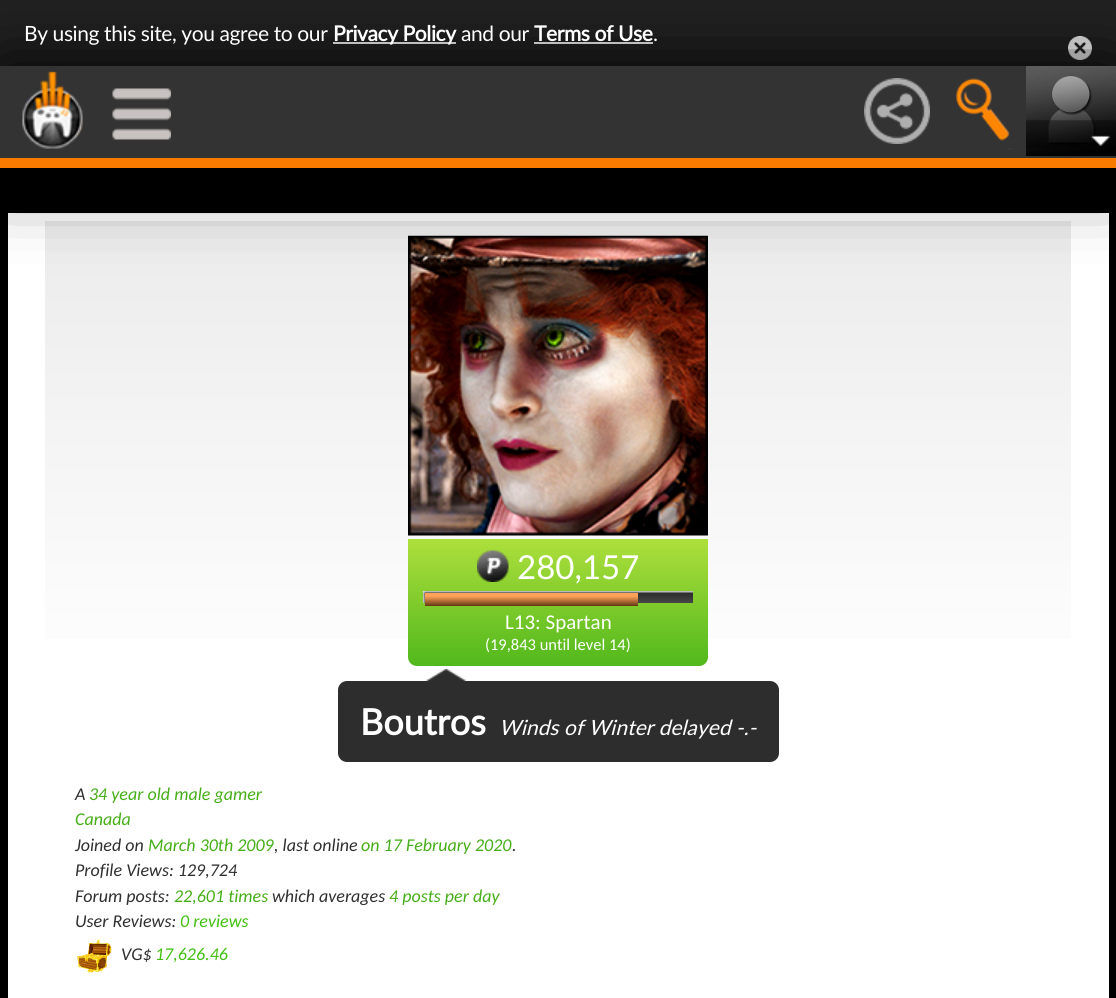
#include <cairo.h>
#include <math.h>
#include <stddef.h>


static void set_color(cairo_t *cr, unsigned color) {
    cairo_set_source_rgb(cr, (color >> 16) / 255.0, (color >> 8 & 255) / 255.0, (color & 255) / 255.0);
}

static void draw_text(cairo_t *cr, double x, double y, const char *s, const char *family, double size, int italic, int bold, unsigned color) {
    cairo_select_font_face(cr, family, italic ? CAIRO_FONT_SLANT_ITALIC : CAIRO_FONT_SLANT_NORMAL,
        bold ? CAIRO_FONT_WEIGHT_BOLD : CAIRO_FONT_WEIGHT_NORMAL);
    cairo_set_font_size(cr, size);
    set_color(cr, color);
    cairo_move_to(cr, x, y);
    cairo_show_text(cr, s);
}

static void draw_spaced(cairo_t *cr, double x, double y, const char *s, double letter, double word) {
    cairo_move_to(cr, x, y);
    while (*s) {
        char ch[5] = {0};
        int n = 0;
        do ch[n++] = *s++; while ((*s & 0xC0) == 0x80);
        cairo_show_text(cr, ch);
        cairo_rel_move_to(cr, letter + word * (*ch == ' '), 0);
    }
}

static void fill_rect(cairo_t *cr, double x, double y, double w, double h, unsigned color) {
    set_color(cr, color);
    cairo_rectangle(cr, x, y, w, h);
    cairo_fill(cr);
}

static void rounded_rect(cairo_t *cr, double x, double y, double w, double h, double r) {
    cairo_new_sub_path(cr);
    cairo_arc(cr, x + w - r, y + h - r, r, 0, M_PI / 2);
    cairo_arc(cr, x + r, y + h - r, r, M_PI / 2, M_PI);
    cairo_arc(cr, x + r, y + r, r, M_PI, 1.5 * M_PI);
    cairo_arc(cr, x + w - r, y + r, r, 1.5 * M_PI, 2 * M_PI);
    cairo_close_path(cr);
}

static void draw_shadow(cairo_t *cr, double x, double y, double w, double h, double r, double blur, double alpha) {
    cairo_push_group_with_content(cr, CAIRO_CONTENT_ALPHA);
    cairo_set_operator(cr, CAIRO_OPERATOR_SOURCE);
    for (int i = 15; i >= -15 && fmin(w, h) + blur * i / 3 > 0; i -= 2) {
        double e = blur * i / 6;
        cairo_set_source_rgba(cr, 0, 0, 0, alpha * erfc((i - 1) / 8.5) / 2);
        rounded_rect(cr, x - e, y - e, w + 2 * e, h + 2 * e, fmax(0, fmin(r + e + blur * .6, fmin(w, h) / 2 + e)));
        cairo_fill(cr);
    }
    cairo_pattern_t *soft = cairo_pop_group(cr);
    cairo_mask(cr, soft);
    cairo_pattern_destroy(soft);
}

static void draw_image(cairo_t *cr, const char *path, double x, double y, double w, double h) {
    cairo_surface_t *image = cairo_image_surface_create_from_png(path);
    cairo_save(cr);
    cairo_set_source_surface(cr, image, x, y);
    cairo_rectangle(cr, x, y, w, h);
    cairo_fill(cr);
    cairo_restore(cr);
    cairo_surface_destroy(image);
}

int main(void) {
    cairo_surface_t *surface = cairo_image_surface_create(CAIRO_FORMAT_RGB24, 1116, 998);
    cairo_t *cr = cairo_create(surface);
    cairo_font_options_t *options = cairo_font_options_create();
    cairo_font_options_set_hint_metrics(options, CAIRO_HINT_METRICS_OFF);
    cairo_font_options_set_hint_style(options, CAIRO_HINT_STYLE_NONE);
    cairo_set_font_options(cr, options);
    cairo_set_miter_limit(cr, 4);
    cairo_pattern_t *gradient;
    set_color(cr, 0x000000);
    cairo_paint(cr);
    fill_rect(cr, 0, 0, 1116, 66, 0x222222);
    fill_rect(cr, 333, 42, 123, 2, 0xFFFFFF);
    fill_rect(cr, 534, 42, 119, 2, 0xFFFFFF);
    draw_image(cr, "assets/img7.png", 1068, 36, 24, 24);
    fill_rect(cr, 8, 213, 1101, 785, 0xFFFFFF);
    gradient = cairo_pattern_create_linear(45, 221, 45, 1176);
    cairo_pattern_add_color_stop_rgba(gradient, 0, 0.922, 0.922, 0.922, 1);
    cairo_pattern_add_color_stop_rgba(gradient, 0.5, 1, 1, 1, 1);
    cairo_pattern_add_color_stop_rgba(gradient, 1, 1, 1, 1, 1);
    cairo_set_source(cr, gradient);
    cairo_pattern_destroy(gradient);
    cairo_rectangle(cr, 45, 221, 1026, 418);
    cairo_fill(cr);
    draw_image(cr, "assets/img8.png", 408, 235, 300, 301);
    set_color(cr, 0x000000);
    draw_shadow(cr, 0, 68, 1116, 102, 0, 37.5, 1);
    fill_rect(cr, 0, 66, 1116, 92, 0x333333);
    draw_image(cr, "assets/img1.png", 22, 71, 61, 78);
    draw_image(cr, "assets/img2.png", 112, 88, 59, 52);
    draw_image(cr, "assets/img3.png", 864, 78, 66, 66);
    draw_image(cr, "assets/img4.png", 956, 78, 57, 72);
    draw_image(cr, "assets/img5.png", 1026, 66, 90, 90);
    draw_image(cr, "assets/img6.png", 1026, 120, 90, 28);
    fill_rect(cr, 0, 158, 1116, 10, 0xF97B00);
    cairo_select_font_face(cr, "Lato", CAIRO_FONT_SLANT_NORMAL, CAIRO_FONT_WEIGHT_NORMAL);
    cairo_set_font_size(cr, 21);
    set_color(cr, 0xFFFFFF);
    draw_spaced(cr, 24, 41, "By using this site, you agree to our", -0.4, 0);
    cairo_select_font_face(cr, "Lato", CAIRO_FONT_SLANT_NORMAL, CAIRO_FONT_WEIGHT_BOLD);
    draw_spaced(cr, 333, 41, "Privacy Policy", -0.4, 0);
    cairo_select_font_face(cr, "Lato", CAIRO_FONT_SLANT_NORMAL, CAIRO_FONT_WEIGHT_NORMAL);
    draw_spaced(cr, 461, 41, "and our", -0.4, 0);
    cairo_select_font_face(cr, "Lato", CAIRO_FONT_SLANT_NORMAL, CAIRO_FONT_WEIGHT_BOLD);
    draw_spaced(cr, 534, 41, "Terms of Use", -0.4, 0);
    cairo_select_font_face(cr, "Lato", CAIRO_FONT_SLANT_NORMAL, CAIRO_FONT_WEIGHT_NORMAL);
    draw_spaced(cr, 653, 41, ".", -0.4, 0);
    gradient = cairo_pattern_create_linear(408, 539, 408, 666);
    cairo_pattern_add_color_stop_rgba(gradient, 0, 0.682, 0.875, 0.235, 1);
    cairo_pattern_add_color_stop_rgba(gradient, 1, 0.318, 0.722, 0.11, 1);
    cairo_set_source(cr, gradient);
    cairo_pattern_destroy(gradient);
    cairo_new_path(cr);
    cairo_move_to(cr, 408, 539);
    cairo_line_to(cr, 708, 539);
    cairo_line_to(cr, 708, 657);
    cairo_curve_to(cr, 708, 662, 704, 666, 699, 666);
    cairo_line_to(cr, 417, 666);
    cairo_curve_to(cr, 412, 666, 408, 662, 408, 657);
    cairo_close_path(cr);
    cairo_fill(cr);
    draw_image(cr, "assets/img9.png", 477, 550, 32, 32);
    draw_text(cr, 517, 579, "280,157", "Lato", 33, 0, 0, 0xFFFFFF);
    draw_image(cr, "assets/img10.png", 423, 591, 270, 12);
    gradient = cairo_pattern_create_linear(425, 593, 425, 606);
    cairo_pattern_add_color_stop_rgba(gradient, 0, 1, 0.635, 0.341, 1);
    cairo_pattern_add_color_stop_rgba(gradient, 0.25, 1, 0.635, 0.341, 1);
    cairo_pattern_add_color_stop_rgba(gradient, 1, 0.384, 0.216, 0.078, 1);
    cairo_set_source(cr, gradient);
    cairo_pattern_destroy(gradient);
    cairo_rectangle(cr, 425, 593, 213, 13);
    cairo_fill(cr);
    draw_text(cr, 505, 629, "L13: Spartan", "Carlito", 21, 0, 0, 0xFFFFFF);
    draw_text(cr, 485, 650, "(19,843 until level 14)", "Carlito", 16.5, 0, 0, 0xFFFFFF);
    set_color(cr, 0x2D2D2D);
    rounded_rect(cr, 338, 681, 441, 81, 9);
    cairo_fill(cr);
    draw_image(cr, "assets/img11.png", 426, 669, 41, 12);
    draw_text(cr, 360, 735, "Boutros", "Lato", 36, 0, 1, 0xFFFFFF);
    draw_text(cr, 499, 735, "Winds of Winter delayed -.-", "Lato", 21, 1, 0, 0xFFFFFF);
    draw_text(cr, 75, 800, "A", "Carlito", 18, 1, 0, 0x2F2F2F);
    draw_text(cr, 89, 800, "34 year old male gamer", "Carlito", 18, 1, 0, 0x46AE18);
    draw_text(cr, 75, 825, "Canada", "Carlito", 18, 1, 0, 0x46AE18);
    draw_text(cr, 75, 851, "Joined on", "Carlito", 18, 1, 0, 0x2F2F2F);
    draw_text(cr, 148, 851, "March 30th 2009", "Carlito", 18, 1, 0, 0x46AE18);
    draw_text(cr, 274, 851, ", last online", "Carlito", 18, 1, 0, 0x2F2F2F);
    draw_text(cr, 361, 851, "on 17 February 2020", "Carlito", 18, 1, 0, 0x46AE18);
    draw_text(cr, 512, 851, ".", "Carlito", 18, 1, 0, 0x2F2F2F);
    draw_text(cr, 75, 876, "Profile Views: 129,724", "Carlito", 18, 1, 0, 0x2F2F2F);
    draw_text(cr, 75, 902, "Forum posts:", "Carlito", 18, 1, 0, 0x2F2F2F);
    draw_text(cr, 174, 902, "22,601 times", "Carlito", 18, 1, 0, 0x46AE18);
    draw_text(cr, 272, 902, "which averages", "Carlito", 18, 1, 0, 0x2F2F2F);
    draw_text(cr, 389, 902, "4 posts per day", "Carlito", 18, 1, 0, 0x46AE18);
    draw_text(cr, 75, 927, "User Reviews:", "Carlito", 18, 1, 0, 0x2F2F2F);
    draw_text(cr, 180, 927, "0 reviews", "Carlito", 18, 1, 0, 0x42C011);
    draw_image(cr, "assets/img12.png", 77, 939, 35, 34);
    draw_text(cr, 121, 960, "VG$", "Carlito", 18, 1, 0, 0x2F2F2F);
    draw_text(cr, 155, 960, "17,626.46", "Carlito", 18, 1, 0, 0x42C011);
    cairo_surface_write_to_png(surface, "output.png");
    cairo_font_options_destroy(options);
    cairo_destroy(cr);
    cairo_surface_destroy(surface);
    return 0;
}
